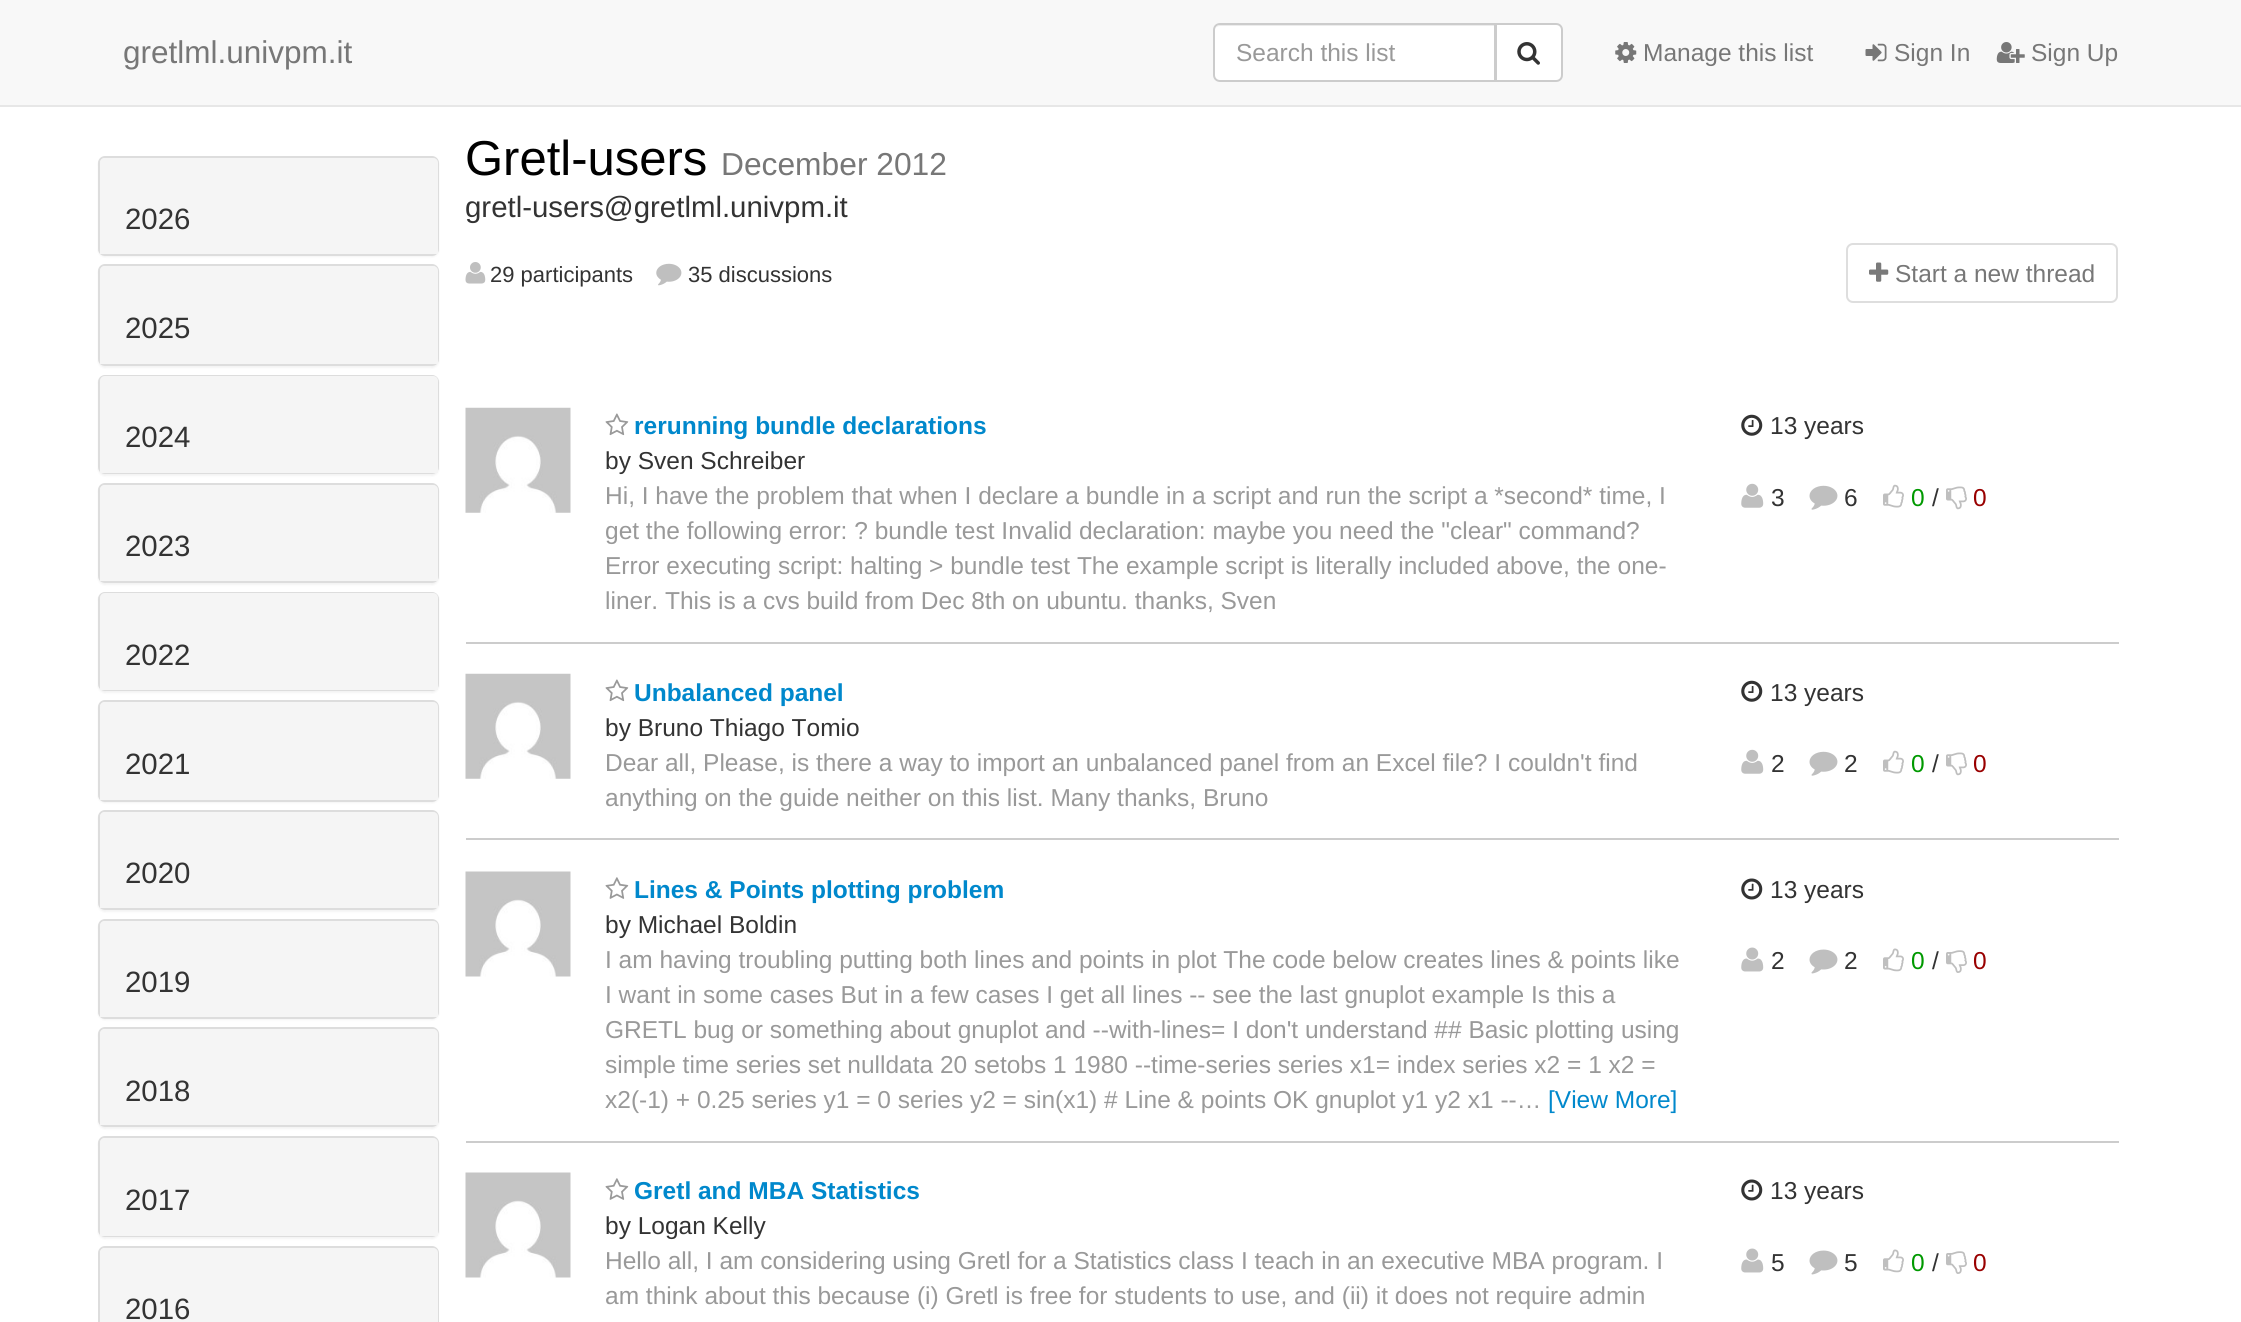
#include <cairo.h>
#include <math.h>
#include <stddef.h>


static void set_color(cairo_t *cr, unsigned color) {
    cairo_set_source_rgb(cr, (color >> 16) / 255.0, (color >> 8 & 255) / 255.0, (color & 255) / 255.0);
}

static void draw_text(cairo_t *cr, double x, double y, const char *s, const char *family, double size, int italic, int bold, unsigned color) {
    cairo_select_font_face(cr, family, italic ? CAIRO_FONT_SLANT_ITALIC : CAIRO_FONT_SLANT_NORMAL,
        bold ? CAIRO_FONT_WEIGHT_BOLD : CAIRO_FONT_WEIGHT_NORMAL);
    cairo_set_font_size(cr, size);
    set_color(cr, color);
    cairo_move_to(cr, x, y);
    cairo_show_text(cr, s);
}

static void fill_rect(cairo_t *cr, double x, double y, double w, double h, unsigned color) {
    set_color(cr, color);
    cairo_rectangle(cr, x, y, w, h);
    cairo_fill(cr);
}

static void rounded_rect(cairo_t *cr, double x, double y, double w, double h, double r) {
    cairo_new_sub_path(cr);
    cairo_arc(cr, x + w - r, y + h - r, r, 0, M_PI / 2);
    cairo_arc(cr, x + r, y + h - r, r, M_PI / 2, M_PI);
    cairo_arc(cr, x + r, y + r, r, M_PI, 1.5 * M_PI);
    cairo_arc(cr, x + w - r, y + r, r, 1.5 * M_PI, 2 * M_PI);
    cairo_close_path(cr);
}

static void draw_shadow(cairo_t *cr, double x, double y, double w, double h, double r, double blur, double alpha) {
    cairo_push_group_with_content(cr, CAIRO_CONTENT_ALPHA);
    cairo_set_operator(cr, CAIRO_OPERATOR_SOURCE);
    for (int i = 15; i >= -15 && fmin(w, h) + blur * i / 3 > 0; i -= 2) {
        double e = blur * i / 6;
        cairo_set_source_rgba(cr, 0, 0, 0, alpha * erfc((i - 1) / 8.5) / 2);
        rounded_rect(cr, x - e, y - e, w + 2 * e, h + 2 * e, fmax(0, fmin(r + e + blur * .6, fmin(w, h) / 2 + e)));
        cairo_fill(cr);
    }
    cairo_pattern_t *soft = cairo_pop_group(cr);
    cairo_mask(cr, soft);
    cairo_pattern_destroy(soft);
}

static void draw_image(cairo_t *cr, const char *path, double x, double y, double w, double h) {
    cairo_surface_t *image = cairo_image_surface_create_from_png(path);
    cairo_save(cr);
    cairo_set_source_surface(cr, image, x, y);
    cairo_rectangle(cr, x, y, w, h);
    cairo_fill(cr);
    cairo_restore(cr);
    cairo_surface_destroy(image);
}

int main(void) {
    cairo_surface_t *surface = cairo_image_surface_create(CAIRO_FORMAT_RGB24, 2241, 1322);
    cairo_t *cr = cairo_create(surface);
    cairo_font_options_t *options = cairo_font_options_create();
    cairo_font_options_set_hint_metrics(options, CAIRO_HINT_METRICS_OFF);
    cairo_font_options_set_hint_style(options, CAIRO_HINT_STYLE_NONE);
    cairo_set_font_options(cr, options);
    cairo_set_miter_limit(cr, 4);
    set_color(cr, 0xFFFFFF);
    cairo_paint(cr);
    fill_rect(cr, 0, 0, 2241, 105, 0xF8F8F8);
    fill_rect(cr, 0, 105, 2241, 2, 0xE7E7E7);
    draw_text(cr, 123, 63, "gretlml.univpm.it", "Liberation Sans", 31.5, 0, 0, 0x777777);
    set_color(cr, 0xFFFFFF);
    cairo_new_path(cr);
    cairo_move_to(cr, 1220, 23);
    cairo_line_to(cr, 1496, 23);
    cairo_line_to(cr, 1496, 82);
    cairo_line_to(cr, 1220, 82);
    cairo_curve_to(cr, 1216, 82, 1213, 79, 1213, 75);
    cairo_line_to(cr, 1213, 30);
    cairo_curve_to(cr, 1213, 26, 1216, 23, 1220, 23);
    cairo_close_path(cr);
    cairo_fill(cr);
    set_color(cr, 0xECECEC);
    cairo_new_path(cr);
    cairo_move_to(cr, 1220, 26);
    cairo_line_to(cr, 1494, 26);
    cairo_line_to(cr, 1494, 81);
    cairo_line_to(cr, 1495, 81);
    cairo_line_to(cr, 1495, 25);
    cairo_line_to(cr, 1220, 25);
    cairo_curve_to(cr, 1218, 25, 1216, 27, 1215, 29);
    cairo_curve_to(cr, 1216, 27, 1218, 26, 1220, 26);
    cairo_close_path(cr);
    cairo_fill(cr);
    cairo_new_path(cr);
    cairo_move_to(cr, 1220, 24);
    cairo_line_to(cr, 1495, 24);
    cairo_line_to(cr, 1495, 81);
    cairo_line_to(cr, 1220, 81);
    cairo_curve_to(cr, 1216.5, 81, 1214, 78.5, 1214, 75);
    cairo_line_to(cr, 1214, 30);
    cairo_curve_to(cr, 1214, 26.5, 1216.5, 24, 1220, 24);
    cairo_close_path(cr);
    set_color(cr, 0xCCCCCC);
    cairo_stroke(cr);
    draw_text(cr, 1236, 61, "Search this list", "Liberation Sans", 24.5, 0, 0, 0x999999);
    set_color(cr, 0xFFFFFF);
    cairo_new_path(cr);
    cairo_move_to(cr, 1496, 24);
    cairo_line_to(cr, 1556, 24);
    cairo_curve_to(cr, 1559.5, 24, 1562, 26.5, 1562, 30);
    cairo_line_to(cr, 1562, 75);
    cairo_curve_to(cr, 1562, 78.5, 1559.5, 81, 1556, 81);
    cairo_line_to(cr, 1496, 81);
    cairo_close_path(cr);
    cairo_fill_preserve(cr);
    set_color(cr, 0xCCCCCC);
    cairo_stroke(cr);
    draw_image(cr, "assets/img1.png", 1517, 42, 23, 23);
    draw_image(cr, "assets/img2.png", 1615, 42, 22, 21);
    draw_text(cr, 1643, 61, "Manage this list", "Liberation Sans", 24.5, 0, 0, 0x777777);
    draw_image(cr, "assets/img3.png", 1865, 43, 22, 19);
    draw_text(cr, 1894, 61, "Sign In", "Liberation Sans", 24.5, 0, 0, 0x777777);
    draw_image(cr, "assets/img4.png", 1996, 42, 29, 21);
    draw_text(cr, 2031, 61, "Sign Up", "Liberation Sans", 24.5, 0, 0, 0x777777);
    set_color(cr, 0x000000);
    draw_shadow(cr, 98, 158, 341, 99, 7, 1, 0.05);
    rounded_rect(cr, 99, 157, 339, 98, 6);
    set_color(cr, 0xDDDDDD);
    cairo_stroke(cr);
    set_color(cr, 0xF5F5F5);
    cairo_new_path(cr);
    cairo_move_to(cr, 105, 158);
    cairo_line_to(cr, 433, 158);
    cairo_curve_to(cr, 436, 158, 438, 160, 438, 163);
    cairo_line_to(cr, 438, 254);
    cairo_line_to(cr, 100, 254);
    cairo_line_to(cr, 100, 163);
    cairo_curve_to(cr, 100, 160, 102, 158, 105, 158);
    cairo_close_path(cr);
    cairo_fill(cr);
    draw_text(cr, 125, 229, "2026", "Liberation Sans", 29.4, 0, 0, 0x333333);
    set_color(cr, 0x000000);
    draw_shadow(cr, 98, 266, 341, 102, 7, 1, 0.05);
    rounded_rect(cr, 99, 265, 339, 100, 6);
    set_color(cr, 0xDDDDDD);
    cairo_stroke(cr);
    set_color(cr, 0xF5F5F5);
    cairo_new_path(cr);
    cairo_move_to(cr, 105, 266);
    cairo_line_to(cr, 433, 266);
    cairo_curve_to(cr, 436, 266, 438, 268, 438, 271);
    cairo_line_to(cr, 438, 364);
    cairo_line_to(cr, 100, 364);
    cairo_line_to(cr, 100, 271);
    cairo_curve_to(cr, 100, 268, 102, 266, 105, 266);
    cairo_close_path(cr);
    cairo_fill(cr);
    draw_text(cr, 125, 338, "2025", "Liberation Sans", 29.4, 0, 0, 0x333333);
    set_color(cr, 0x000000);
    draw_shadow(cr, 98, 376, 341, 100, 7, 1, 0.05);
    rounded_rect(cr, 99, 376, 339, 97, 6);
    set_color(cr, 0xDDDDDD);
    cairo_stroke(cr);
    set_color(cr, 0xF5F5F5);
    cairo_new_path(cr);
    cairo_move_to(cr, 105, 376);
    cairo_line_to(cr, 433, 376);
    cairo_curve_to(cr, 436, 376, 438, 378, 438, 381);
    cairo_line_to(cr, 438, 473);
    cairo_line_to(cr, 100, 473);
    cairo_line_to(cr, 100, 381);
    cairo_curve_to(cr, 100, 378, 102, 376, 105, 376);
    cairo_close_path(cr);
    cairo_fill(cr);
    draw_text(cr, 125, 447, "2024", "Liberation Sans", 29.4, 0, 0, 0x333333);
    set_color(cr, 0x000000);
    draw_shadow(cr, 98, 485, 341, 100, 7, 1, 0.05);
    rounded_rect(cr, 99, 484, 339, 98, 6);
    set_color(cr, 0xDDDDDD);
    cairo_stroke(cr);
    set_color(cr, 0xF5F5F5);
    cairo_new_path(cr);
    cairo_move_to(cr, 105, 485);
    cairo_line_to(cr, 433, 485);
    cairo_curve_to(cr, 436, 485, 438, 487, 438, 490);
    cairo_line_to(cr, 438, 581);
    cairo_line_to(cr, 100, 581);
    cairo_line_to(cr, 100, 490);
    cairo_curve_to(cr, 100, 487, 102, 485, 105, 485);
    cairo_close_path(cr);
    cairo_fill(cr);
    draw_text(cr, 125, 556, "2023", "Liberation Sans", 29.4, 0, 0, 0x333333);
    set_color(cr, 0x000000);
    draw_shadow(cr, 98, 593, 341, 100, 7, 1, 0.05);
    rounded_rect(cr, 99, 593, 339, 97, 6);
    set_color(cr, 0xDDDDDD);
    cairo_stroke(cr);
    set_color(cr, 0xF5F5F5);
    cairo_new_path(cr);
    cairo_move_to(cr, 105, 593);
    cairo_line_to(cr, 433, 593);
    cairo_curve_to(cr, 436, 593, 438, 595, 438, 598);
    cairo_line_to(cr, 438, 690);
    cairo_line_to(cr, 100, 690);
    cairo_line_to(cr, 100, 598);
    cairo_curve_to(cr, 100, 595, 102, 593, 105, 593);
    cairo_close_path(cr);
    cairo_fill(cr);
    draw_text(cr, 125, 665, "2022", "Liberation Sans", 29.4, 0, 0, 0x333333);
    set_color(cr, 0x000000);
    draw_shadow(cr, 98, 702, 341, 101, 7, 1, 0.05);
    rounded_rect(cr, 99, 701, 339, 100, 6);
    set_color(cr, 0xDDDDDD);
    cairo_stroke(cr);
    set_color(cr, 0xF5F5F5);
    cairo_new_path(cr);
    cairo_move_to(cr, 105, 702);
    cairo_line_to(cr, 433, 702);
    cairo_curve_to(cr, 436, 702, 438, 704, 438, 707);
    cairo_line_to(cr, 438, 800);
    cairo_line_to(cr, 100, 800);
    cairo_line_to(cr, 100, 707);
    cairo_curve_to(cr, 100, 704, 102, 702, 105, 702);
    cairo_close_path(cr);
    cairo_fill(cr);
    draw_text(cr, 125, 774, "2021", "Liberation Sans", 29.4, 0, 0, 0x333333);
    set_color(cr, 0x000000);
    draw_shadow(cr, 98, 812, 341, 100, 7, 1, 0.05);
    rounded_rect(cr, 99, 811, 339, 98, 6);
    set_color(cr, 0xDDDDDD);
    cairo_stroke(cr);
    set_color(cr, 0xF5F5F5);
    cairo_new_path(cr);
    cairo_move_to(cr, 105, 812);
    cairo_line_to(cr, 433, 812);
    cairo_curve_to(cr, 436, 812, 438, 814, 438, 817);
    cairo_line_to(cr, 438, 908);
    cairo_line_to(cr, 100, 908);
    cairo_line_to(cr, 100, 817);
    cairo_curve_to(cr, 100, 814, 102, 812, 105, 812);
    cairo_close_path(cr);
    cairo_fill(cr);
    draw_text(cr, 125, 883, "2020", "Liberation Sans", 29.4, 0, 0, 0x333333);
    set_color(cr, 0x000000);
    draw_shadow(cr, 98, 921, 341, 99, 7, 1, 0.05);
    rounded_rect(cr, 99, 920, 339, 98, 6);
    set_color(cr, 0xDDDDDD);
    cairo_stroke(cr);
    set_color(cr, 0xF5F5F5);
    cairo_new_path(cr);
    cairo_move_to(cr, 105, 921);
    cairo_line_to(cr, 433, 921);
    cairo_curve_to(cr, 436, 921, 438, 923, 438, 926);
    cairo_line_to(cr, 438, 1017);
    cairo_line_to(cr, 100, 1017);
    cairo_line_to(cr, 100, 926);
    cairo_curve_to(cr, 100, 923, 102, 921, 105, 921);
    cairo_close_path(cr);
    cairo_fill(cr);
    draw_text(cr, 125, 992, "2019", "Liberation Sans", 29.4, 0, 0, 0x333333);
    set_color(cr, 0x000000);
    draw_shadow(cr, 98, 1029, 341, 100, 7, 1, 0.05);
    rounded_rect(cr, 99, 1028, 339, 98, 6);
    set_color(cr, 0xDDDDDD);
    cairo_stroke(cr);
    set_color(cr, 0xF5F5F5);
    cairo_new_path(cr);
    cairo_move_to(cr, 105, 1029);
    cairo_line_to(cr, 433, 1029);
    cairo_curve_to(cr, 436, 1029, 438, 1031, 438, 1034);
    cairo_line_to(cr, 438, 1125);
    cairo_line_to(cr, 100, 1125);
    cairo_line_to(cr, 100, 1034);
    cairo_curve_to(cr, 100, 1031, 102, 1029, 105, 1029);
    cairo_close_path(cr);
    cairo_fill(cr);
    draw_text(cr, 125, 1101, "2018", "Liberation Sans", 29.4, 0, 0, 0x333333);
    set_color(cr, 0x000000);
    draw_shadow(cr, 98, 1138, 341, 101, 7, 1, 0.05);
    rounded_rect(cr, 99, 1137, 339, 99, 6);
    set_color(cr, 0xDDDDDD);
    cairo_stroke(cr);
    set_color(cr, 0xF5F5F5);
    cairo_new_path(cr);
    cairo_move_to(cr, 105, 1138);
    cairo_line_to(cr, 433, 1138);
    cairo_curve_to(cr, 436, 1138, 438, 1140, 438, 1143);
    cairo_line_to(cr, 438, 1236);
    cairo_line_to(cr, 100, 1236);
    cairo_line_to(cr, 100, 1143);
    cairo_curve_to(cr, 100, 1140, 102, 1138, 105, 1138);
    cairo_close_path(cr);
    cairo_fill(cr);
    draw_text(cr, 125, 1210, "2017", "Liberation Sans", 29.4, 0, 0, 0x333333);
    rounded_rect(cr, 99, 1247, 339, 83, 6);
    set_color(cr, 0xDDDDDD);
    cairo_stroke(cr);
    set_color(cr, 0xF5F5F5);
    cairo_new_path(cr);
    cairo_move_to(cr, 105, 1248);
    cairo_line_to(cr, 433, 1248);
    cairo_curve_to(cr, 436, 1248, 438, 1250, 438, 1253);
    cairo_line_to(cr, 438, 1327);
    cairo_line_to(cr, 100, 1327);
    cairo_line_to(cr, 100, 1253);
    cairo_curve_to(cr, 100, 1250, 102, 1248, 105, 1248);
    cairo_close_path(cr);
    cairo_fill(cr);
    draw_text(cr, 125, 1319, "2016", "Liberation Sans", 29.4, 0, 0, 0x333333);
    draw_text(cr, 465, 175, "Gretl-users", "Liberation Sans", 49, 0, 0, 0x000000);
    draw_text(cr, 721, 175, "December 2012", "Liberation Sans", 31.75, 0, 0, 0x777777);
    draw_text(cr, 465, 217, "gretl-users@gretlml.univpm.it", "Liberation Sans", 29.4, 0, 0, 0x333333);
    draw_image(cr, "assets/img5.png", 465, 262, 21, 22);
    draw_text(cr, 490, 282, "29 participants", "Liberation Sans", 22, 0, 0, 0x333333);
    draw_image(cr, "assets/img6.png", 656, 263, 26, 23);
    draw_text(cr, 688, 282, "35 discussions", "Liberation Sans", 22, 0, 0, 0x333333);
    rounded_rect(cr, 1847, 244, 270, 58, 6);
    set_color(cr, 0xDEDEDE);
    cairo_stroke(cr);
    draw_image(cr, "assets/img7.png", 1869, 262, 20, 20);
    draw_text(cr, 1895, 282, "Start a new thread", "Liberation Sans", 24.5, 0, 0, 0x777777);
    fill_rect(cr, 466, 642, 1653, 2, 0xCCCCCC);
    draw_image(cr, "assets/img8.png", 465, 407, 106, 106);
    draw_image(cr, "assets/img9.png", 605, 413, 24, 23);
    draw_text(cr, 634, 434, "rerunning bundle declarations", "Liberation Sans", 24.5, 0, 1, 0x0088CC);
    draw_text(cr, 605, 469, "by Sven Schreiber", "Liberation Sans", 24.5, 0, 0, 0x333333);
    draw_text(cr, 605, 504, "Hi, I have the problem that when I declare a bundle in a script and run the script a *second* time, I", "Liberation Sans", 24.5, 0, 0, 0x999999);
    draw_text(cr, 605, 539, "get the following error: ? bundle test Invalid declaration: maybe you need the \"clear\" command?", "Liberation Sans", 24.5, 0, 0, 0x999999);
    draw_text(cr, 605, 574, "Error executing script: halting > bundle test The example script is literally included above, the one-", "Liberation Sans", 24.5, 0, 0, 0x999999);
    draw_text(cr, 605, 609, "liner. This is a cvs build from Dec 8th on ubuntu. thanks, Sven", "Liberation Sans", 24.5, 0, 0, 0x999999);
    draw_image(cr, "assets/img10.png", 1741, 414, 22, 22);
    draw_text(cr, 1770, 434, "13 years", "Liberation Sans", 24.5, 0, 0, 0x333333);
    draw_image(cr, "assets/img11.png", 1741, 483, 23, 25);
    draw_text(cr, 1771, 506, "3", "Liberation Sans", 24.5, 0, 0, 0x333333);
    draw_image(cr, "assets/img12.png", 1809, 485, 29, 25);
    draw_text(cr, 1844, 506, "6", "Liberation Sans", 24.5, 0, 0, 0x333333);
    draw_image(cr, "assets/img13.png", 1883, 484, 21, 24);
    draw_text(cr, 1911, 506, "0", "Liberation Sans", 24.5, 0, 0, 0x009900);
    draw_text(cr, 1932, 506, "/", "Liberation Sans", 24.5, 0, 0, 0x333333);
    draw_image(cr, "assets/img14.png", 1946, 486, 21, 24);
    draw_text(cr, 1973, 506, "0", "Liberation Sans", 24.5, 0, 0, 0x990000);
    fill_rect(cr, 466, 838, 1653, 2, 0xCCCCCC);
    draw_image(cr, "assets/img8.png", 465, 673, 106, 106);
    draw_image(cr, "assets/img9.png", 605, 679, 24, 23);
    draw_text(cr, 634, 701, "Unbalanced panel", "Liberation Sans", 24.5, 0, 1, 0x0088CC);
    draw_text(cr, 605, 736, "by Bruno Thiago Tomio", "Liberation Sans", 24.5, 0, 0, 0x333333);
    draw_text(cr, 605, 771, "Dear all, Please, is there a way to import an unbalanced panel from an Excel file? I couldn't find", "Liberation Sans", 24.5, 0, 0, 0x999999);
    draw_text(cr, 605, 806, "anything on the guide neither on this list. Many thanks, Bruno", "Liberation Sans", 24.5, 0, 0, 0x999999);
    draw_image(cr, "assets/img10.png", 1741, 680, 22, 22);
    draw_text(cr, 1770, 701, "13 years", "Liberation Sans", 24.5, 0, 0, 0x333333);
    draw_image(cr, "assets/img11.png", 1741, 749, 23, 25);
    draw_text(cr, 1771, 772, "2", "Liberation Sans", 24.5, 0, 0, 0x333333);
    draw_image(cr, "assets/img12.png", 1809, 751, 29, 25);
    draw_text(cr, 1844, 772, "2", "Liberation Sans", 24.5, 0, 0, 0x333333);
    draw_image(cr, "assets/img13.png", 1883, 750, 21, 24);
    draw_text(cr, 1911, 772, "0", "Liberation Sans", 24.5, 0, 0, 0x009900);
    draw_text(cr, 1932, 772, "/", "Liberation Sans", 24.5, 0, 0, 0x333333);
    draw_image(cr, "assets/img14.png", 1946, 752, 21, 24);
    draw_text(cr, 1973, 772, "0", "Liberation Sans", 24.5, 0, 0, 0x990000);
    fill_rect(cr, 466, 1141, 1653, 2, 0xCCCCCC);
    draw_image(cr, "assets/img15.png", 465, 871, 106, 106);
    draw_image(cr, "assets/img16.png", 605, 877, 24, 22);
    draw_text(cr, 634, 898, "Lines & Points plotting problem", "Liberation Sans", 24.5, 0, 1, 0x0088CC);
    draw_text(cr, 605, 933, "by Michael Boldin", "Liberation Sans", 24.5, 0, 0, 0x333333);
    draw_text(cr, 605, 968, "I am having troubling putting both lines and points in plot The code below creates lines & points like", "Liberation Sans", 24.5, 0, 0, 0x999999);
    draw_text(cr, 605, 1003, "I want in some cases But in a few cases I get all lines -- see the last gnuplot example Is this a", "Liberation Sans", 24.5, 0, 0, 0x999999);
    draw_text(cr, 605, 1038, "GRETL bug or something about gnuplot and --with-lines= I don't understand ## Basic plotting using", "Liberation Sans", 24.5, 0, 0, 0x999999);
    draw_text(cr, 605, 1073, "simple time series set nulldata 20 setobs 1 1980 --time-series series x1= index series x2 = 1 x2 =", "Liberation Sans", 24.5, 0, 0, 0x999999);
    draw_text(cr, 605, 1108, "x2(-1) + 0.25 series y1 = 0 series y2 = sin(x1) # Line & points OK gnuplot y1 y2 x1 --…", "Liberation Sans", 24.5, 0, 0, 0x999999);
    draw_text(cr, 1548, 1108, "[View More]", "Liberation Sans", 24.5, 0, 0, 0x0088CC);
    draw_image(cr, "assets/img17.png", 1741, 878, 22, 22);
    draw_text(cr, 1770, 898, "13 years", "Liberation Sans", 24.5, 0, 0, 0x333333);
    draw_image(cr, "assets/img18.png", 1741, 947, 23, 25);
    draw_text(cr, 1771, 969, "2", "Liberation Sans", 24.5, 0, 0, 0x333333);
    draw_image(cr, "assets/img19.png", 1809, 949, 29, 25);
    draw_text(cr, 1844, 969, "2", "Liberation Sans", 24.5, 0, 0, 0x333333);
    draw_image(cr, "assets/img20.png", 1883, 948, 21, 24);
    draw_text(cr, 1911, 969, "0", "Liberation Sans", 24.5, 0, 0, 0x009900);
    draw_text(cr, 1932, 969, "/", "Liberation Sans", 24.5, 0, 0, 0x333333);
    draw_image(cr, "assets/img21.png", 1946, 950, 21, 23);
    draw_text(cr, 1973, 969, "0", "Liberation Sans", 24.5, 0, 0, 0x990000);
    draw_image(cr, "assets/img15.png", 465, 1172, 106, 106);
    draw_image(cr, "assets/img16.png", 605, 1178, 24, 22);
    draw_text(cr, 634, 1199, "Gretl and MBA Statistics", "Liberation Sans", 24.5, 0, 1, 0x0088CC);
    draw_text(cr, 605, 1234, "by Logan Kelly", "Liberation Sans", 24.5, 0, 0, 0x333333);
    draw_text(cr, 605, 1269, "Hello all, I am considering using Gretl for a Statistics class I teach in an executive MBA program. I", "Liberation Sans", 24.5, 0, 0, 0x999999);
    draw_text(cr, 605, 1304, "am think about this because (i) Gretl is free for students to use, and (ii) it does not require admin", "Liberation Sans", 24.5, 0, 0, 0x999999);
    draw_image(cr, "assets/img17.png", 1741, 1179, 22, 22);
    draw_text(cr, 1770, 1199, "13 years", "Liberation Sans", 24.5, 0, 0, 0x333333);
    draw_image(cr, "assets/img18.png", 1741, 1248, 23, 25);
    draw_text(cr, 1771, 1271, "5", "Liberation Sans", 24.5, 0, 0, 0x333333);
    draw_image(cr, "assets/img19.png", 1809, 1250, 29, 25);
    draw_text(cr, 1844, 1271, "5", "Liberation Sans", 24.5, 0, 0, 0x333333);
    draw_image(cr, "assets/img20.png", 1883, 1249, 21, 24);
    draw_text(cr, 1911, 1271, "0", "Liberation Sans", 24.5, 0, 0, 0x009900);
    draw_text(cr, 1932, 1271, "/", "Liberation Sans", 24.5, 0, 0, 0x333333);
    draw_image(cr, "assets/img21.png", 1946, 1251, 21, 23);
    draw_text(cr, 1973, 1271, "0", "Liberation Sans", 24.5, 0, 0, 0x990000);
    cairo_surface_write_to_png(surface, "output.png");
    cairo_font_options_destroy(options);
    cairo_destroy(cr);
    cairo_surface_destroy(surface);
    return 0;
}
